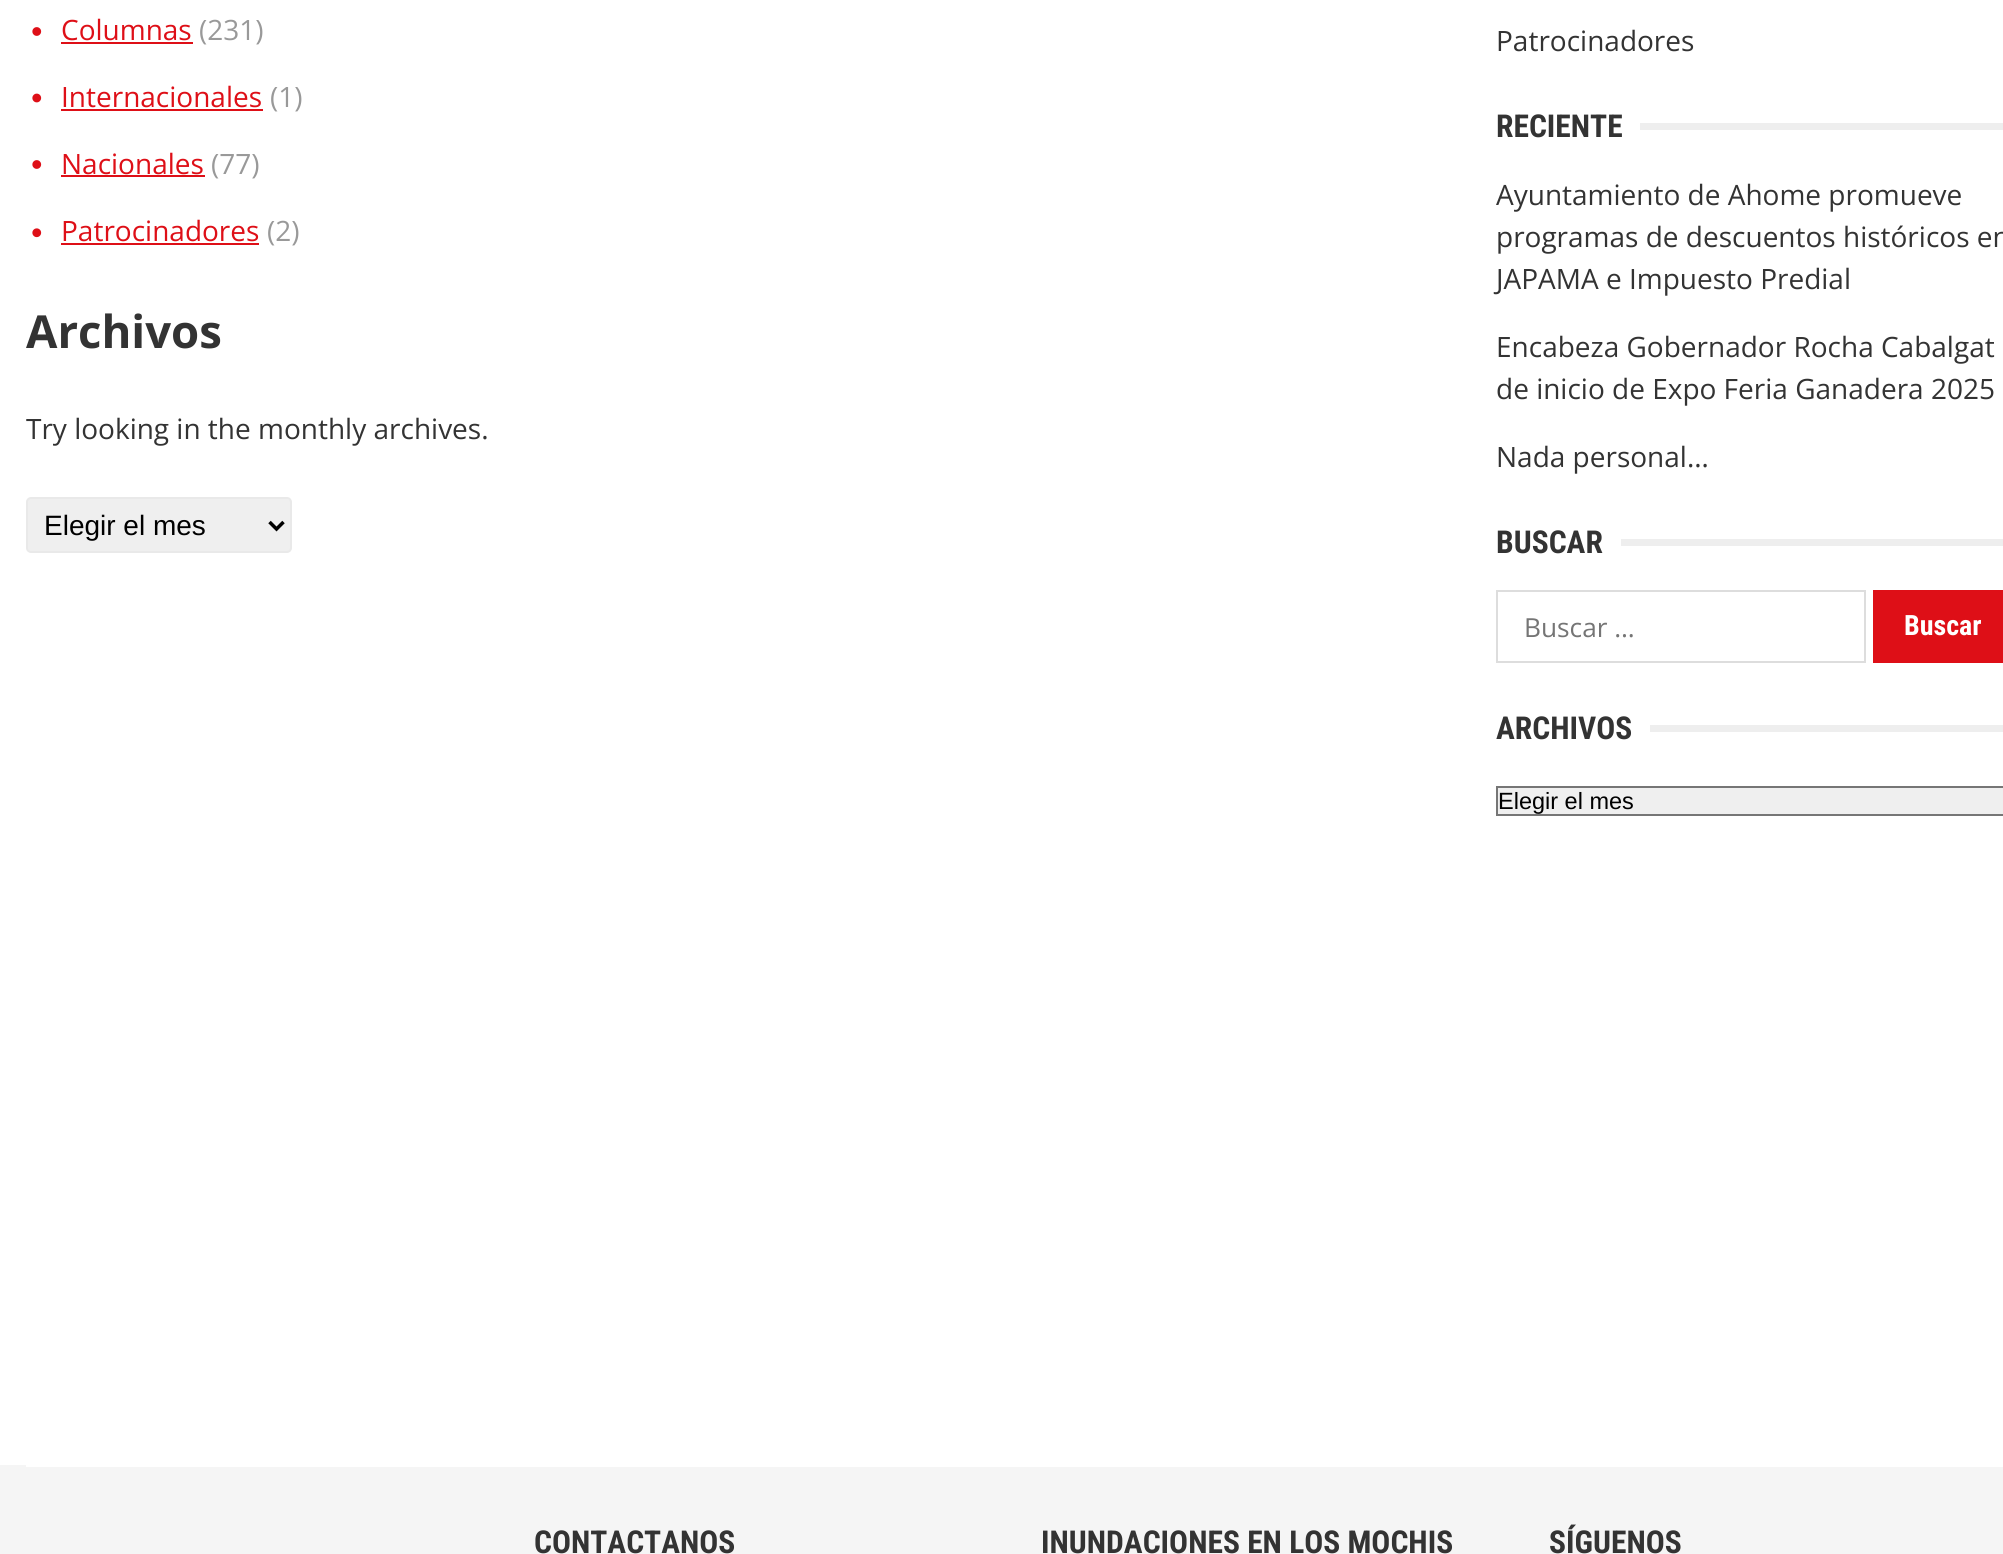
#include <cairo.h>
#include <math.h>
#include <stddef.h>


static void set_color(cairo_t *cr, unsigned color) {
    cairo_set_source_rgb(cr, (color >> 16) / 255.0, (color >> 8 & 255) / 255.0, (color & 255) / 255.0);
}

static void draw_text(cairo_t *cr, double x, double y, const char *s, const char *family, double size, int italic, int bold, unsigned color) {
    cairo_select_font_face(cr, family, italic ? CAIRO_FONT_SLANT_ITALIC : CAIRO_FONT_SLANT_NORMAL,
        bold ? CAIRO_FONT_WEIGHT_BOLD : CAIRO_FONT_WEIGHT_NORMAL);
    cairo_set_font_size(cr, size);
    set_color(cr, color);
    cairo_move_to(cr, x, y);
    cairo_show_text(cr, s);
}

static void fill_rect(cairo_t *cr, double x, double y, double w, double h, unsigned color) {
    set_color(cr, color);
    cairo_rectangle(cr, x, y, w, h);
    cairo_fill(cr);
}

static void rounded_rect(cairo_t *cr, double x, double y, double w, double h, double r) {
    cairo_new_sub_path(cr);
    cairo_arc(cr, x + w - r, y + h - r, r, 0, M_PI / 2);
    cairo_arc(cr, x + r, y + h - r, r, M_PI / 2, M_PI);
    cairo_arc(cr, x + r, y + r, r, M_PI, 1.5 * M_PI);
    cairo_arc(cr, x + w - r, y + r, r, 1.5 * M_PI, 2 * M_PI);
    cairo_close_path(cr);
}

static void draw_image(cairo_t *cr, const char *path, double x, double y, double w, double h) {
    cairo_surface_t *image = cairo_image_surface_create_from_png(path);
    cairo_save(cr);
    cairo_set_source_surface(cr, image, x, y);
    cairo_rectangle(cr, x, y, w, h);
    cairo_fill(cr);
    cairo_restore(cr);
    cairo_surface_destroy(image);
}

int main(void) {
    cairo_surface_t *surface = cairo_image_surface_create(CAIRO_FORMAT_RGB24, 2003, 1554);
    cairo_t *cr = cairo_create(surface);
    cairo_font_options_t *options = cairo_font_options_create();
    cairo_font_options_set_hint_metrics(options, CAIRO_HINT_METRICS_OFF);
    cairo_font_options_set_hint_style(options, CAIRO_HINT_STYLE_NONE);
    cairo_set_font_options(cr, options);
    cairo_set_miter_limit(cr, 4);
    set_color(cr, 0xFFFFFF);
    cairo_paint(cr);
    draw_image(cr, "assets/img1.png", 32, 27, 10, 9);
    draw_text(cr, 61, 40, "Columnas", "Open Sans", 28, 0, 0, 0xDE0F17);
    fill_rect(cr, 61, 42, 132, 2, 0xDE0F17);
    draw_text(cr, 199, 40, "(231)", "Open Sans", 28, 0, 0, 0x999999);
    draw_image(cr, "assets/img2.png", 32, 93, 10, 10);
    draw_text(cr, 61, 107, "Internacionales", "Open Sans", 28, 0, 0, 0xDE0F17);
    fill_rect(cr, 61, 109, 202, 2, 0xDE0F17);
    draw_text(cr, 270, 107, "(1)", "Open Sans", 28, 0, 0, 0x999999);
    draw_image(cr, "assets/img1.png", 32, 160, 10, 9);
    draw_text(cr, 61, 174, "Nacionales", "Open Sans", 28, 0, 0, 0xDE0F17);
    fill_rect(cr, 61, 175, 144, 2, 0xDE0F17);
    draw_text(cr, 211, 174, "(77)", "Open Sans", 28, 0, 0, 0x999999);
    draw_image(cr, "assets/img3.png", 32, 228, 10, 10);
    draw_text(cr, 61, 241, "Patrocinadores", "Open Sans", 28, 0, 0, 0xDE0F17);
    fill_rect(cr, 61, 243, 198, 2, 0xDE0F17);
    draw_text(cr, 267, 241, "(2)", "Open Sans", 28, 0, 0, 0x999999);
    draw_text(cr, 26, 348, "Archivos", "Open Sans", 45.5, 0, 1, 0x333333);
    draw_text(cr, 26, 439, "Try looking in the monthly archives.", "Open Sans", 28, 0, 0, 0x333333);
    set_color(cr, 0xEFEFEF);
    rounded_rect(cr, 27, 498, 264, 54, 4);
    cairo_fill_preserve(cr);
    set_color(cr, 0xE9E9E9);
    cairo_stroke(cr);
    cairo_new_path(cr);
    cairo_move_to(cr, 269.5, 522);
    cairo_line_to(cr, 276.5, 529);
    cairo_line_to(cr, 283.5, 522);
    set_color(cr, 0x000000);
    cairo_set_line_width(cr, 3.5);
    cairo_stroke(cr);
    draw_text(cr, 44, 535, "Elegir el mes", "Liberation Sans", 28, 0, 0, 0x000000);
    draw_text(cr, 1496, 51, "Patrocinadores", "Open Sans", 28, 0, 0, 0x333333);
    draw_text(cr, 1496, 137, "RECIENTE", "Roboto Condensed", 31.5, 0, 1, 0x333333);
    fill_rect(cr, 1640, 123, 363, 7, 0xEEEEEE);
    draw_text(cr, 1496, 205, "Ayuntamiento de Ahome promueve", "Open Sans", 28, 0, 0, 0x333333);
    draw_text(cr, 1496, 247, "programas de descuentos históricos en", "Open Sans", 28, 0, 0, 0x333333);
    draw_text(cr, 1496, 289, "JAPAMA e Impuesto Predial", "Open Sans", 28, 0, 0, 0x333333);
    draw_text(cr, 1496, 357, "Encabeza Gobernador Rocha Cabalgat", "Open Sans", 28, 0, 0, 0x333333);
    draw_text(cr, 1496, 399, "de inicio de Expo Feria Ganadera 2025", "Open Sans", 28, 0, 0, 0x333333);
    draw_text(cr, 1496, 467, "Nada personal…", "Open Sans", 28, 0, 0, 0x333333);
    draw_text(cr, 1496, 553, "BUSCAR", "Roboto Condensed", 31.5, 0, 1, 0x333333);
    fill_rect(cr, 1621, 539, 382, 7, 0xEEEEEE);
    cairo_rectangle(cr, 1497, 591, 368, 71);
    set_color(cr, 0xDDDDDD);
    cairo_set_line_width(cr, 2);
    cairo_stroke(cr);
    draw_text(cr, 1524, 637, "Buscar …", "Open Sans", 26.25, 0, 0, 0x757575);
    fill_rect(cr, 1873, 590, 130, 73, 0xDE0F17);
    draw_text(cr, 1904, 635, "Buscar", "Roboto Condensed", 28, 0, 1, 0xFFFFFF);
    draw_text(cr, 1496, 739, "ARCHIVOS", "Roboto Condensed", 31.5, 0, 1, 0x333333);
    fill_rect(cr, 1650, 725, 353, 7, 0xEEEEEE);
    set_color(cr, 0xEFEFEF);
    cairo_rectangle(cr, 1497, 787, 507, 28);
    cairo_fill_preserve(cr);
    set_color(cr, 0x767676);
    cairo_stroke(cr);
    draw_text(cr, 1498, 809, "Elegir el mes", "Liberation Sans", 23.5, 0, 0, 0x000000);
    fill_rect(cr, 0, 1465, 2003, 89, 0xF5F5F5);
    fill_rect(cr, 26, 1465, 1977, 2, 0xFFFFFF);
    draw_text(cr, 534, 1553, "CONTACTANOS", "Roboto Condensed", 31.5, 0, 1, 0x333333);
    draw_text(cr, 1041, 1553, "INUNDACIONES EN LOS MOCHIS", "Roboto Condensed", 31.5, 0, 1, 0x333333);
    draw_text(cr, 1549, 1553, "SÍGUENOS", "Roboto Condensed", 31.5, 0, 1, 0x333333);
    cairo_surface_write_to_png(surface, "output.png");
    cairo_font_options_destroy(options);
    cairo_destroy(cr);
    cairo_surface_destroy(surface);
    return 0;
}
